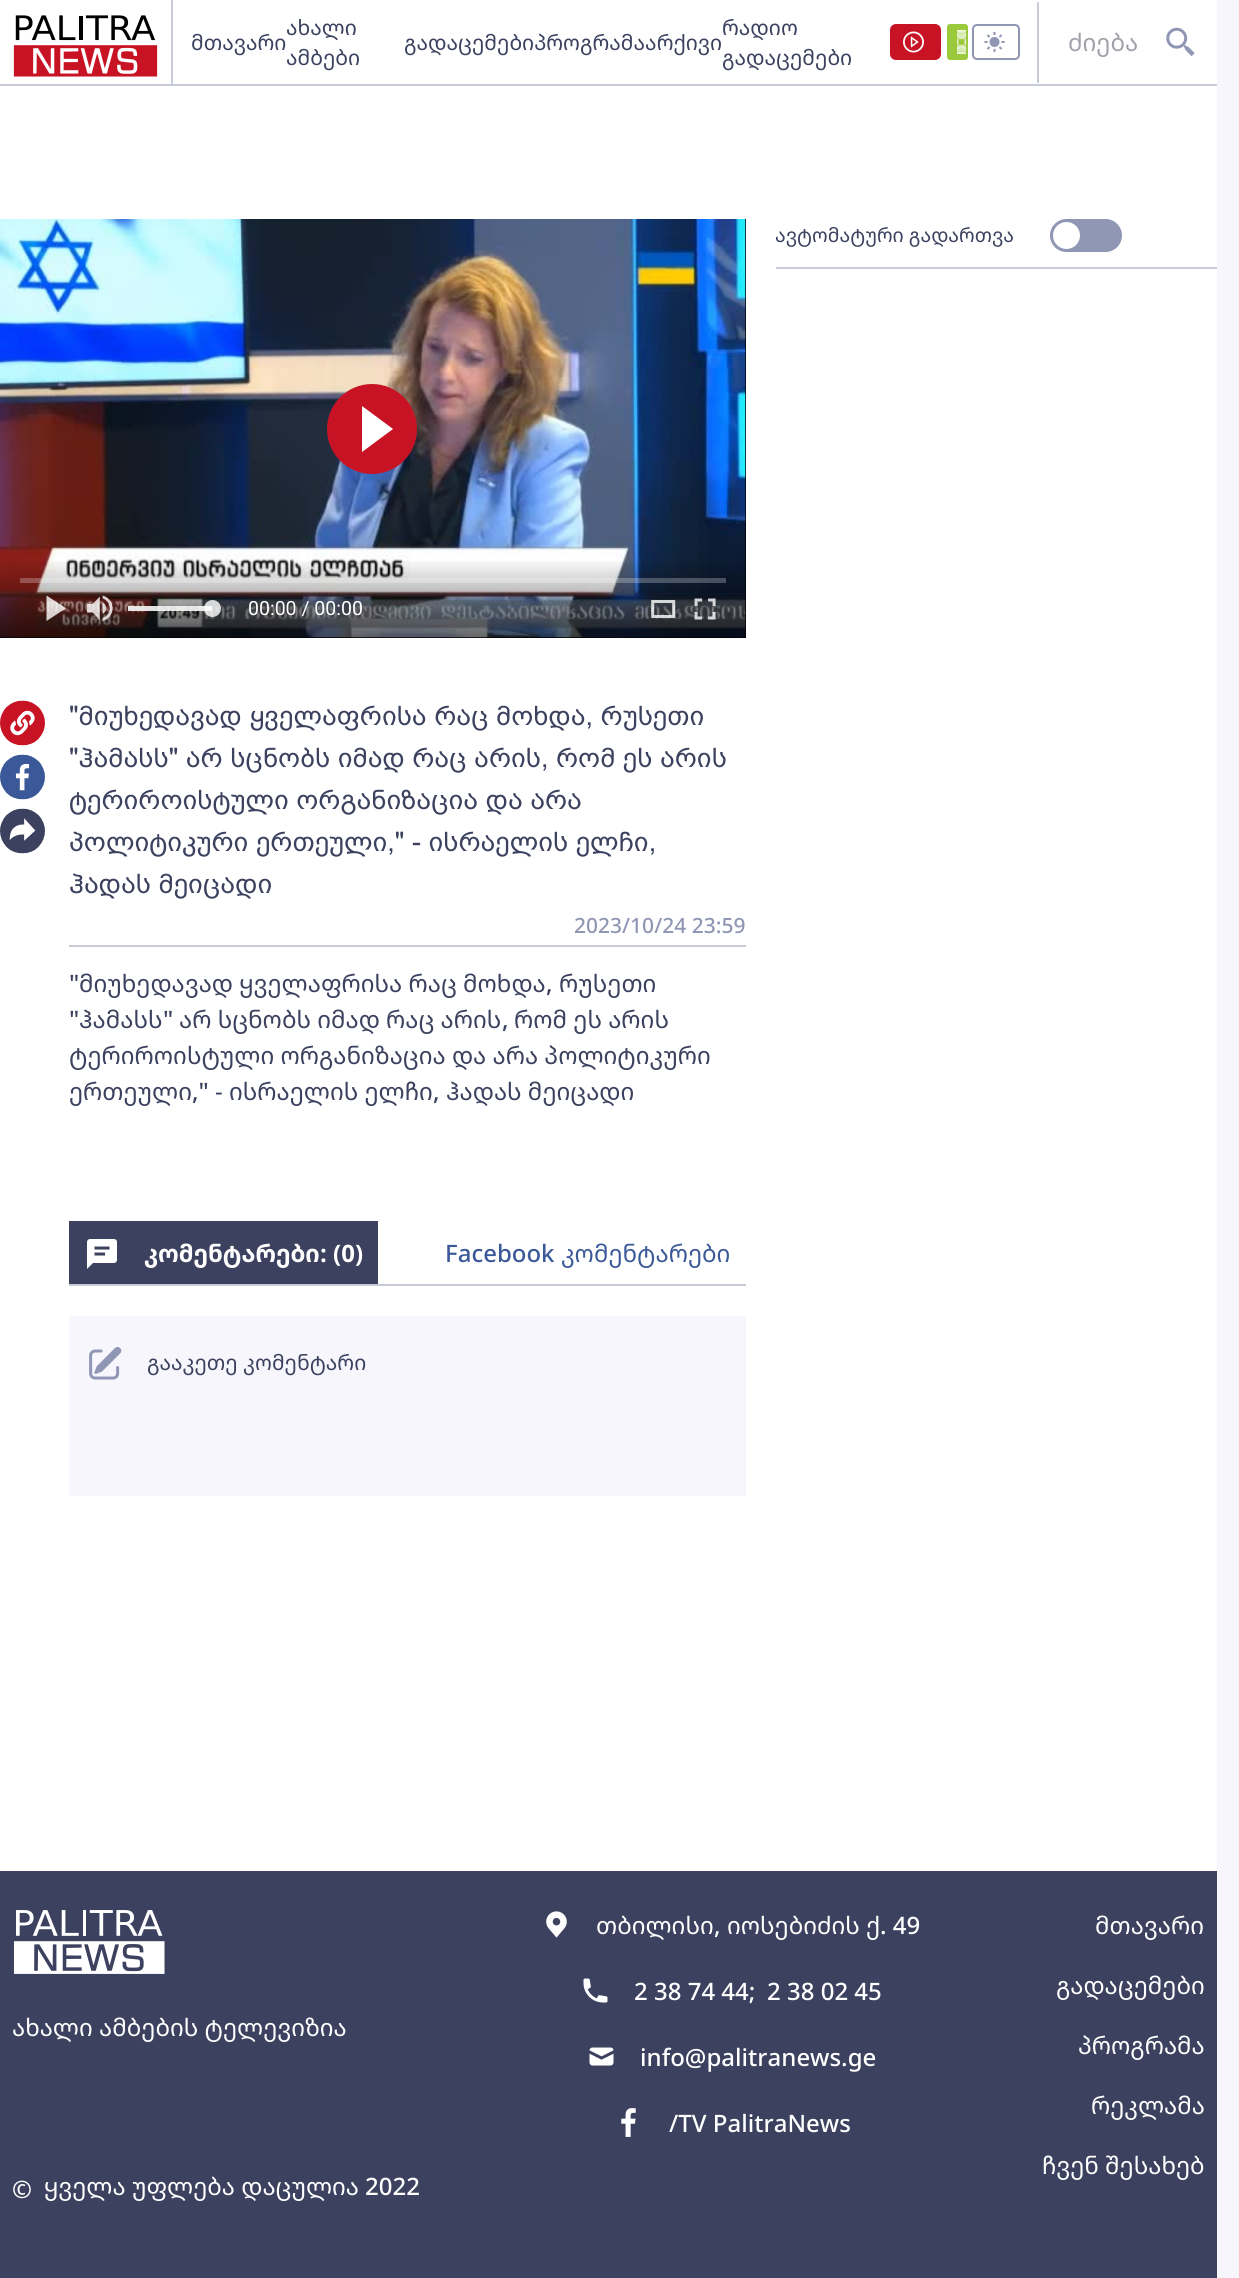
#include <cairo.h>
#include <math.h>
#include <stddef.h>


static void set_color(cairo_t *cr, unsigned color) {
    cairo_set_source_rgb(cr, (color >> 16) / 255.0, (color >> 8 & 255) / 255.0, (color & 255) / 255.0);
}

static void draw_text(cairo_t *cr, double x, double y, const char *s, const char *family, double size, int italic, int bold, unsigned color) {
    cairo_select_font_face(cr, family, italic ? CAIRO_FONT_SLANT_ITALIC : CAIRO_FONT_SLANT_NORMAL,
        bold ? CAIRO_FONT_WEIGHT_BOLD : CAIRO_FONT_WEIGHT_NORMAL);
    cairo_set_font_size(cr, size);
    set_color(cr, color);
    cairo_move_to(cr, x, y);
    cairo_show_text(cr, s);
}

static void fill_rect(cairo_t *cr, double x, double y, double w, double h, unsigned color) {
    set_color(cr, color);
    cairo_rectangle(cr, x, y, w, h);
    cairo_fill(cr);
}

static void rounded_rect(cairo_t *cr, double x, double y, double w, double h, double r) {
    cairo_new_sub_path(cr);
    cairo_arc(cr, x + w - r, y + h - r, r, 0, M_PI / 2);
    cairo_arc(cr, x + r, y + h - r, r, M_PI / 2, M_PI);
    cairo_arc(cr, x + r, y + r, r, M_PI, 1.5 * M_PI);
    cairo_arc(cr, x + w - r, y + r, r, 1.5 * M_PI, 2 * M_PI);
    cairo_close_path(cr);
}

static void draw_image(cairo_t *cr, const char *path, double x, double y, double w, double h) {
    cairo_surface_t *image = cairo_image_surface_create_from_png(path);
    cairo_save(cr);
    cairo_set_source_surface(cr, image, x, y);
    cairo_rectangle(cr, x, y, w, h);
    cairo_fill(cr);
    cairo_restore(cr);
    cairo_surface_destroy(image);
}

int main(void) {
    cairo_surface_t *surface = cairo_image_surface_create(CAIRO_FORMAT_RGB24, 1239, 2278);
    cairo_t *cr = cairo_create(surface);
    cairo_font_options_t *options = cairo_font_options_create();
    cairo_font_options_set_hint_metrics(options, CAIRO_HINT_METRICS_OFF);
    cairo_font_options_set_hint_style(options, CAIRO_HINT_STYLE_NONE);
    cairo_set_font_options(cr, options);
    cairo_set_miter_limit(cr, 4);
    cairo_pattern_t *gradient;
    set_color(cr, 0xF6F6FC);
    cairo_paint(cr);
    fill_rect(cr, 0, 0, 1217, 1871, 0xFFFFFF);
    fill_rect(cr, 0, 84, 1217, 2, 0xC8CBDA);
    fill_rect(cr, 171, 0, 2, 84, 0xC8CBDA);
    draw_image(cr, "assets/img1.png", 13, 15, 145, 62);
    fill_rect(cr, 1037, 2, 2, 81, 0xC8CBDA);
    draw_text(cr, 191, 50, "მთავარი", "Noto Sans Georgian", 21, 0, 0, 0x3B415E);
    draw_text(cr, 286, 35, "ახალი", "Noto Sans Georgian", 21, 0, 0, 0x3B415E);
    draw_text(cr, 286, 65, "ამბები", "Noto Sans Georgian", 21, 0, 0, 0x3B415E);
    draw_text(cr, 404, 50, "გადაცემებიპროგრამაარქივი", "Noto Sans Georgian", 21, 0, 0, 0x3B415E);
    draw_text(cr, 722, 35, "რადიო", "Noto Sans Georgian", 21, 0, 0, 0x3B415E);
    draw_text(cr, 722, 65, "გადაცემები", "Noto Sans Georgian", 21, 0, 0, 0x3B415E);
    set_color(cr, 0xC71324);
    rounded_rect(cr, 890, 24, 51, 36, 6);
    cairo_fill(cr);
    draw_image(cr, "assets/img2.png", 903, 31, 21, 22);
    set_color(cr, 0x9ACA3C);
    rounded_rect(cr, 947, 24, 21, 36, 3);
    cairo_fill(cr);
    draw_image(cr, "assets/img3.png", 957, 30, 9, 24);
    rounded_rect(cr, 973, 25, 46, 34, 4);
    set_color(cr, 0x9097B4);
    cairo_stroke(cr);
    draw_image(cr, "assets/img4.png", 984, 32, 21, 20);
    draw_text(cr, 1068, 51, "ძიება", "Noto Sans Georgian", 24, 0, 0, 0xA1A1AA);
    draw_image(cr, "assets/img5.png", 1166, 27, 29, 30);
    fill_rect(cr, 776, 267, 441, 2, 0xC8CBDA);
    draw_text(cr, 775, 242, "ავტომატური გადართვა", "Noto Sans Georgian", 19.5, 0, 0, 0x3B415E);
    set_color(cr, 0x9097B4);
    rounded_rect(cr, 1050, 219, 72, 33, 16.5);
    cairo_fill(cr);
    set_color(cr, 0xFFFFFF);
    cairo_arc(cr, 1066.5, 235.5, 13.5, 0, 2 * M_PI);
    cairo_fill(cr);
    fill_rect(cr, 0, 219, 746, 419, 0x000000);
    draw_image(cr, "assets/img6.png", 0, 219, 746, 419);
    set_color(cr, 0xC71324);
    cairo_arc(cr, 372, 429, 45, 0, 2 * M_PI);
    cairo_fill(cr);
    set_color(cr, 0xFFFFFF);
    cairo_new_path(cr);
    cairo_move_to(cr, 362, 452);
    cairo_line_to(cr, 362, 406);
    cairo_line_to(cr, 393, 429);
    cairo_close_path(cr);
    cairo_fill(cr);
    gradient = cairo_pattern_create_linear(373, 558, 373, 638);
    cairo_pattern_add_color_stop_rgba(gradient, 0, 0, 0, 0, 0);
    cairo_pattern_add_color_stop_rgba(gradient, 1, 0, 0, 0, 0.6);
    cairo_set_source(cr, gradient);
    cairo_pattern_destroy(gradient);
    cairo_rectangle(cr, 0, 561, 746, 77);
    cairo_fill(cr);
    cairo_set_source_rgba(cr, 1, 1, 1, 0.25);
    cairo_rectangle(cr, 20, 578, 706, 5);
    cairo_fill(cr);
    draw_image(cr, "assets/img7.png", 46, 595, 20, 26);
    draw_image(cr, "assets/img8.png", 87, 595, 26, 26);
    cairo_set_source_rgba(cr, 0.671, 0.675, 0.675, 0.54);
    cairo_rectangle(cr, 128, 606, 84, 5);
    cairo_fill(cr);
    cairo_set_source_rgba(cr, 1, 1, 1, 0.8);
    cairo_rectangle(cr, 128, 606, 84, 5);
    cairo_fill(cr);
    cairo_arc(cr, 212.5, 608.5, 8.5, 0, 2 * M_PI);
    cairo_fill(cr);
    draw_text(cr, 248, 615, "00:00 / 00:00", "Roboto", 19.5, 0, 0, 0xFFFFFF);
    draw_image(cr, "assets/img9.png", 651, 600, 25, 18);
    draw_image(cr, "assets/img10.png", 694, 598, 22, 22);
    draw_image(cr, "assets/img11.png", 0, 700, 45, 46);
    draw_image(cr, "assets/img12.png", 0, 754, 45, 46);
    draw_image(cr, "assets/img13.png", 0, 808, 45, 46);
    draw_text(cr, 69, 725, "\"მიუხედავად ყველაფრისა რაც მოხდა, რუსეთი", "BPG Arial", 27, 0, 0, 0x3B415E);
    draw_text(cr, 69, 767, "\"ჰამასს\" არ სცნობს იმად რაც არის, რომ ეს არის", "BPG Arial", 27, 0, 0, 0x3B415E);
    draw_text(cr, 69, 809, "ტერიროისტული ორგანიზაცია და არა", "BPG Arial", 27, 0, 0, 0x3B415E);
    draw_text(cr, 69, 851, "პოლიტიკური ერთეული,\" - ისრაელის ელჩი,", "BPG Arial", 27, 0, 0, 0x3B415E);
    draw_text(cr, 69, 893, "ჰადას მეიცადი", "BPG Arial", 27, 0, 0, 0x3B415E);
    draw_text(cr, 574, 933, "2023/10/24 23:59", "Noto Sans Medium", 21, 0, 0, 0x9097B4);
    fill_rect(cr, 69, 945, 677, 2, 0xC8CBDA);
    draw_text(cr, 69, 992, "\"", "Noto Sans Medium", 24, 0, 0, 0x3B415E);
    draw_text(cr, 79, 992, "მიუხედავად ყველაფრისა რაც მოხდა", "Noto Sans Georgian", 24, 0, 0, 0x3B415E);
    draw_text(cr, 559, 992, "რუსეთი", "Noto Sans Georgian", 24, 0, 0, 0x3B415E);
    draw_text(cr, 546, 992, ",", "Noto Sans Medium", 24, 0, 0, 0x3B415E);
    draw_text(cr, 69, 1028, "\"", "Noto Sans Medium", 24, 0, 0, 0x3B415E);
    draw_text(cr, 79, 1028, "ჰამასს", "Noto Sans Georgian", 24, 0, 0, 0x3B415E);
    draw_text(cr, 163, 1028, "\"", "Noto Sans Medium", 24, 0, 0, 0x3B415E);
    draw_text(cr, 179, 1028, "არ სცნობს იმად რაც არის", "Noto Sans Georgian", 24, 0, 0, 0x3B415E);
    draw_text(cr, 514, 1028, "რომ ეს არის", "Noto Sans Georgian", 24, 0, 0, 0x3B415E);
    draw_text(cr, 502, 1028, ",", "Noto Sans Medium", 24, 0, 0, 0x3B415E);
    draw_text(cr, 69, 1064, "ტერიროისტული ორგანიზაცია და არა პოლიტიკური", "Noto Sans Georgian", 24, 0, 0, 0x3B415E);
    draw_text(cr, 69, 1100, "ერთეული", "Noto Sans Georgian", 24, 0, 0, 0x3B415E);
    draw_text(cr, 192, 1100, ",\"", "Noto Sans Medium", 24, 0, 0, 0x3B415E);
    draw_text(cr, 215, 1100, "- ისრაელის ელჩი", "Noto Sans Georgian", 24, 0, 0, 0x3B415E);
    draw_text(cr, 433, 1100, ",", "Noto Sans Medium", 24, 0, 0, 0x3B415E);
    draw_text(cr, 446, 1100, "ჰადას მეიცადი", "Noto Sans Georgian", 24, 0, 0, 0x3B415E);
    fill_rect(cr, 69, 1284, 677, 2, 0xC8CBDA);
    fill_rect(cr, 69, 1221, 309, 63, 0x3B415E);
    draw_image(cr, "assets/img14.png", 87, 1239, 30, 30);
    draw_text(cr, 144, 1262, "კომენტარები", "Noto Sans Georgian", 24, 0, 1, 0xFFFFFF);
    draw_text(cr, 320, 1262, ": (0)", "Noto Sans", 24, 0, 1, 0xFFFFFF);
    draw_text(cr, 445, 1262, "Facebook", "Noto Sans Medium", 24, 0, 0, 0x3B5998);
    draw_text(cr, 561, 1262, "კომენტარები", "Noto Sans Georgian", 24, 0, 0, 0x3B5998);
    fill_rect(cr, 69, 1316, 677, 180, 0xF6F6FC);
    draw_image(cr, "assets/img15.png", 89, 1347, 33, 33);
    draw_text(cr, 147, 1370, "გააკეთე კომენტარი", "Noto Sans Georgian", 21, 0, 0, 0x3B415E);
    fill_rect(cr, 0, 1871, 1217, 407, 0x3B415E);
    draw_image(cr, "assets/img16.png", 13, 1910, 152, 64);
    draw_text(cr, 12, 2036, "ახალი ამბების ტელევიზია", "Noto Sans Georgian", 24, 0, 0, 0xFFFFFF);
    draw_text(cr, 12, 2198, "©", "Noto Sans Medium", 24, 0, 0, 0xFFFFFF);
    draw_text(cr, 44, 2195, "ყველა უფლება დაცულია", "Noto Sans Georgian", 24, 0, 0, 0xFFFFFF);
    draw_text(cr, 365, 2195, "2022", "Noto Sans Medium", 24, 0, 0, 0xFFFFFF);
    draw_image(cr, "assets/img17.png", 546, 1911, 21, 27);
    draw_text(cr, 596, 1934, "თბილისი", "Noto Sans Georgian", 24, 0, 0, 0xFFFFFF);
    draw_text(cr, 714, 1934, ",", "Noto Sans Medium", 24, 0, 0, 0xFFFFFF);
    draw_text(cr, 727, 1934, "იოსებიძის ქ", "Noto Sans Georgian", 24, 0, 0, 0xFFFFFF);
    draw_text(cr, 880, 1934, ". 49", "Noto Sans Medium", 24, 0, 0, 0xFFFFFF);
    draw_image(cr, "assets/img18.png", 583, 1978, 25, 25);
    draw_text(cr, 634, 2000, "2 38 74 44;", "Noto Sans Medium", 24, 0, 0, 0xFFFFFF);
    draw_text(cr, 767, 2000, "2 38 02 45", "Noto Sans Medium", 24, 0, 0, 0xFFFFFF);
    draw_image(cr, "assets/img19.png", 589, 2047, 25, 19);
    draw_text(cr, 640, 2066, "info@palitranews.ge", "Noto Sans Medium", 24, 0, 0, 0xFFFFFF);
    draw_image(cr, "assets/img20.png", 621, 2108, 15, 29);
    draw_text(cr, 669, 2132, "/TV PalitraNews", "Noto Sans Medium", 24, 0, 0, 0xFFFFFF);
    draw_text(cr, 1095, 1934, "მთავარი", "Noto Sans Georgian", 24, 0, 0, 0xFFFFFF);
    draw_text(cr, 1056, 1994, "გადაცემები", "Noto Sans Georgian", 24, 0, 0, 0xFFFFFF);
    draw_text(cr, 1078, 2054, "პროგრამა", "Noto Sans Georgian", 24, 0, 0, 0xFFFFFF);
    draw_text(cr, 1091, 2114, "რეკლამა", "Noto Sans Georgian", 24, 0, 0, 0xFFFFFF);
    draw_text(cr, 1042, 2174, "ჩვენ შესახებ", "Noto Sans Georgian", 24, 0, 0, 0xFFFFFF);
    cairo_surface_write_to_png(surface, "output.png");
    cairo_font_options_destroy(options);
    cairo_destroy(cr);
    cairo_surface_destroy(surface);
    return 0;
}
